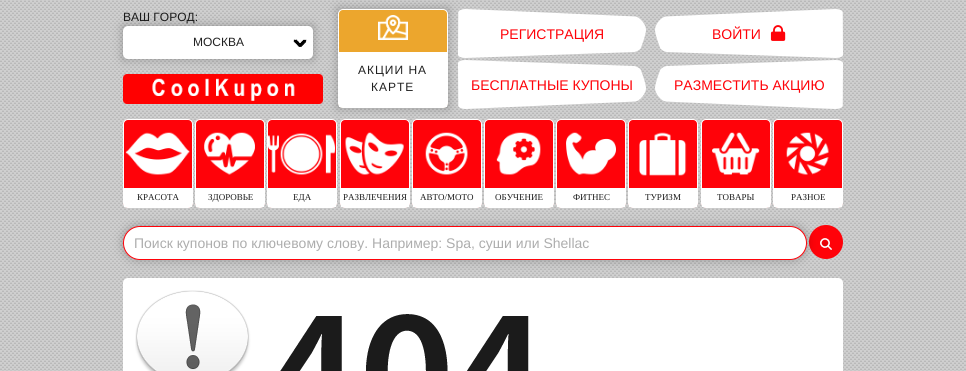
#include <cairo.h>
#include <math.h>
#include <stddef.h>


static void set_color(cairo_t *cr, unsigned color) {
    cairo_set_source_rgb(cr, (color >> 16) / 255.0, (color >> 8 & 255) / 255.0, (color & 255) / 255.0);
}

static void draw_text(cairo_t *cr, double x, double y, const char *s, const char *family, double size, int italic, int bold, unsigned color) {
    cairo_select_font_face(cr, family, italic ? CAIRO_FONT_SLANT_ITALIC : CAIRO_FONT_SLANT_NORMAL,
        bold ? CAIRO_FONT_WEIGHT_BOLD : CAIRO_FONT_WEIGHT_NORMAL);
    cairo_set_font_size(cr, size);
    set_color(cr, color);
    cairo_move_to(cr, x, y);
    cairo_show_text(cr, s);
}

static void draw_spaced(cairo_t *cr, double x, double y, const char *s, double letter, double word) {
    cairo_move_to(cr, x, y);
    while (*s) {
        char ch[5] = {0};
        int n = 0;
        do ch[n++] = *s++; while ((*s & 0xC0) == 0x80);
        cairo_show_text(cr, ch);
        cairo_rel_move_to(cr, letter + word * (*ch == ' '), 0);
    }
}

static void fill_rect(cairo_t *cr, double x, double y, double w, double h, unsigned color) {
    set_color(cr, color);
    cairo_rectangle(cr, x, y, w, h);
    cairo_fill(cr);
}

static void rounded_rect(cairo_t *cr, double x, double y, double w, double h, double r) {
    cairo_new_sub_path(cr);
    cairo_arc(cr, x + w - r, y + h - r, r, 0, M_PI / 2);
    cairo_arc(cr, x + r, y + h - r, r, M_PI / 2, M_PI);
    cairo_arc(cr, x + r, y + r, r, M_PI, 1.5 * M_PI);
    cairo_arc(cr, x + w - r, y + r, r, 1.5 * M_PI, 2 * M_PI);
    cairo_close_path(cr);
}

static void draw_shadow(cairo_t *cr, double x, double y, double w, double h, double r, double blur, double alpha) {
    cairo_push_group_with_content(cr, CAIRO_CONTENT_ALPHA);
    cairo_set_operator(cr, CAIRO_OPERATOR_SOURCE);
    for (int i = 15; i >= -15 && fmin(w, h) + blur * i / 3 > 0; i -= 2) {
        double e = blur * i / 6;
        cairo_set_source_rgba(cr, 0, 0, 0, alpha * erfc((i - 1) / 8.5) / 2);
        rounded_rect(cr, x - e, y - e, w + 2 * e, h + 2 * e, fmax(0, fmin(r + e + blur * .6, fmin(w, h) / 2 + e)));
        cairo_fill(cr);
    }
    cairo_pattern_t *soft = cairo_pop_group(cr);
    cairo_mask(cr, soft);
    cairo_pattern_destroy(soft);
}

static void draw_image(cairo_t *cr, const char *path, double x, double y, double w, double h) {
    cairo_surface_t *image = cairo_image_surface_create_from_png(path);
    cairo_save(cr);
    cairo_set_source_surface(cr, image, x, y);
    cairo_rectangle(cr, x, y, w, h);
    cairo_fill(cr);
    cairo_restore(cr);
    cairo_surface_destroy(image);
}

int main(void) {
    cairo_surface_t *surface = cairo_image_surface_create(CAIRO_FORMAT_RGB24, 966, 371);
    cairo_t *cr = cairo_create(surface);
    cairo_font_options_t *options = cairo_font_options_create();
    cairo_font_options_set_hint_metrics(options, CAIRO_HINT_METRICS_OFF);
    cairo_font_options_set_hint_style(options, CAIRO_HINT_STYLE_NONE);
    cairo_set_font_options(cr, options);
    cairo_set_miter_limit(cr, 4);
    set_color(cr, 0xFFFFFF);
    cairo_paint(cr);
    draw_image(cr, "assets/img1.png", 0, 0, 966, 371);
    draw_text(cr, 123, 21, "ВАШ ГОРОД:", "Liberation Sans", 12, 0, 0, 0x1B1B1B);
    draw_image(cr, "assets/img3.png", 123, 74, 200, 30);
    set_color(cr, 0x000000);
    draw_shadow(cr, 123, 26, 190, 33, 0, 5, 0.25);
    set_color(cr, 0xFFFFFF);
    rounded_rect(cr, 123, 26, 190, 33, 5);
    cairo_fill(cr);
    draw_text(cr, 193, 46, "МОСКВА", "Liberation Sans", 12, 0, 0, 0x212121);
    draw_image(cr, "assets/img2.png", 293, 39, 14, 8);
    set_color(cr, 0x000000);
    draw_shadow(cr, 338, 9, 110, 99, 0, 5, 0.25);
    set_color(cr, 0xECA62D);
    rounded_rect(cr, 338.5, 9.5, 109, 98, 4.5);
    cairo_fill_preserve(cr);
    set_color(cr, 0xFFFFFF);
    cairo_set_line_width(cr, 1);
    cairo_stroke(cr);
    draw_image(cr, "assets/img4.png", 378, 15, 30, 25);
    fill_rect(cr, 339, 52, 108, 55, 0xFFFFFF);
    set_color(cr, 0x212121);
    draw_spaced(cr, 358, 74, "АКЦИИ НА", 1, 0);
    draw_spaced(cr, 371, 91, "КАРТЕ", 1, 0);
    draw_image(cr, "assets/img5.png", 458, 9, 188, 49);
    draw_text(cr, 500, 39, "РЕГИСТРАЦИЯ", "Liberation Sans", 14, 0, 0, 0xFF0209);
    draw_image(cr, "assets/img6.png", 655, 9, 188, 49);
    draw_text(cr, 712, 39, "ВОЙТИ", "Liberation Sans", 14, 0, 0, 0xFF0209);
    draw_image(cr, "assets/img7.png", 770, 25, 16, 16);
    draw_image(cr, "assets/img8.png", 458, 60, 188, 49);
    draw_text(cr, 471, 90, "БЕСПЛАТНЫЕ КУПОНЫ", "Liberation Sans", 14, 0, 0, 0xFF0209);
    draw_image(cr, "assets/img9.png", 655, 60, 188, 49);
    draw_text(cr, 674, 90, "РАЗМЕСТИТЬ АКЦИЮ", "Liberation Sans", 14, 0, 0, 0xFF0209);
    rounded_rect(cr, 123.5, 119.5, 69, 88, 4.5);
    cairo_fill_preserve(cr);
    set_color(cr, 0xFFFFFF);
    cairo_stroke(cr);
    draw_image(cr, "assets/img10.png", 125, 132, 65, 43);
    fill_rect(cr, 124, 188, 68, 19, 0xFFFFFF);
    draw_text(cr, 137, 200, "КРАСОТА", "Liberation Serif", 9, 0, 0, 0x1B1B1B);
    set_color(cr, 0xFF0209);
    rounded_rect(cr, 195.5, 119.5, 69, 88, 4.5);
    cairo_fill_preserve(cr);
    set_color(cr, 0xFFFFFF);
    cairo_stroke(cr);
    draw_image(cr, "assets/img11.png", 204, 132, 51, 43);
    fill_rect(cr, 196, 188, 68, 19, 0xFFFFFF);
    draw_text(cr, 208, 200, "ЗДОРОВЬЕ", "Liberation Serif", 9, 0, 0, 0x1B1B1B);
    set_color(cr, 0xFF0209);
    rounded_rect(cr, 267.5, 119.5, 69, 88, 4.5);
    cairo_fill_preserve(cr);
    set_color(cr, 0xFFFFFF);
    cairo_stroke(cr);
    draw_image(cr, "assets/img12.png", 268, 133, 68, 42);
    fill_rect(cr, 268, 188, 68, 19, 0xFFFFFF);
    draw_text(cr, 293, 200, "ЕДА", "Liberation Serif", 9, 0, 0, 0x1B1B1B);
    set_color(cr, 0xFF0209);
    rounded_rect(cr, 340.5, 119.5, 69, 88, 4.5);
    cairo_fill_preserve(cr);
    set_color(cr, 0xFFFFFF);
    cairo_stroke(cr);
    draw_image(cr, "assets/img13.png", 345, 132, 59, 43);
    fill_rect(cr, 341, 188, 68, 19, 0xFFFFFF);
    draw_text(cr, 343, 200, "РАЗВЛЕЧЕНИЯ", "Liberation Serif", 9, 0, 0, 0x1B1B1B);
    set_color(cr, 0xFF0209);
    rounded_rect(cr, 412.5, 119.5, 69, 88, 4.5);
    cairo_fill_preserve(cr);
    set_color(cr, 0xFFFFFF);
    cairo_stroke(cr);
    draw_image(cr, "assets/img14.png", 425, 132, 43, 43);
    fill_rect(cr, 413, 188, 68, 19, 0xFFFFFF);
    draw_text(cr, 420, 200, "АВТО/МОТО", "Liberation Serif", 9, 0, 0, 0x1B1B1B);
    set_color(cr, 0xFF0209);
    rounded_rect(cr, 484.5, 119.5, 69, 88, 4.5);
    cairo_fill_preserve(cr);
    set_color(cr, 0xFFFFFF);
    cairo_stroke(cr);
    draw_image(cr, "assets/img15.png", 496, 132, 45, 43);
    fill_rect(cr, 485, 188, 68, 19, 0xFFFFFF);
    draw_text(cr, 495, 200, "ОБУЧЕНИЕ", "Liberation Serif", 9, 0, 0, 0x1B1B1B);
    set_color(cr, 0xFF0209);
    rounded_rect(cr, 556.5, 119.5, 69, 88, 4.5);
    cairo_fill_preserve(cr);
    set_color(cr, 0xFFFFFF);
    cairo_stroke(cr);
    draw_image(cr, "assets/img16.png", 566, 132, 50, 43);
    fill_rect(cr, 557, 188, 68, 19, 0xFFFFFF);
    draw_text(cr, 573, 200, "ФИТНЕС", "Liberation Serif", 9, 0, 0, 0x1B1B1B);
    set_color(cr, 0xFF0209);
    rounded_rect(cr, 628.5, 119.5, 69, 88, 4.5);
    cairo_fill_preserve(cr);
    set_color(cr, 0xFFFFFF);
    cairo_stroke(cr);
    draw_image(cr, "assets/img17.png", 639, 132, 48, 44);
    fill_rect(cr, 629, 188, 68, 19, 0xFFFFFF);
    draw_text(cr, 645, 200, "ТУРИЗМ", "Liberation Serif", 9, 0, 0, 0x1B1B1B);
    set_color(cr, 0xFF0209);
    rounded_rect(cr, 701.5, 119.5, 69, 88, 4.5);
    cairo_fill_preserve(cr);
    set_color(cr, 0xFFFFFF);
    cairo_stroke(cr);
    draw_image(cr, "assets/img18.png", 712, 132, 48, 43);
    fill_rect(cr, 702, 188, 68, 19, 0xFFFFFF);
    draw_text(cr, 717, 200, "ТОВАРЫ", "Liberation Serif", 9, 0, 0, 0x1B1B1B);
    set_color(cr, 0xFF0209);
    rounded_rect(cr, 773.5, 119.5, 69, 88, 4.5);
    cairo_fill_preserve(cr);
    set_color(cr, 0xFFFFFF);
    cairo_stroke(cr);
    draw_image(cr, "assets/img19.png", 786, 132, 43, 43);
    fill_rect(cr, 774, 188, 68, 19, 0xFFFFFF);
    draw_text(cr, 791, 200, "РАЗНОЕ", "Liberation Serif", 9, 0, 0, 0x1B1B1B);
    set_color(cr, 0xFF0209);
    cairo_new_path(cr);
    cairo_arc(cr, 826, 242, 17, 0, 2 * M_PI);
    cairo_fill(cr);
    draw_image(cr, "assets/img20.png", 820, 238, 12, 12);
    set_color(cr, 0x000000);
    draw_shadow(cr, 123, 226, 684, 34, 17, 5, 0.25);
    set_color(cr, 0xFFFFFF);
    rounded_rect(cr, 123.5, 226.5, 683, 33, 16.5);
    cairo_fill_preserve(cr);
    set_color(cr, 0xFF0209);
    cairo_stroke(cr);
    draw_text(cr, 134, 248, "Поиск купонов по ключевому слову. Например: Spa, суши или Shellac", "Liberation Sans", 14, 0, 0, 0xADADAD);
    set_color(cr, 0xFFFFFF);
    rounded_rect(cr, 123, 278, 720, 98, 5);
    cairo_fill(cr);
    draw_image(cr, "assets/img21.png", 135, 290, 394, 81);
    cairo_surface_write_to_png(surface, "output.png");
    cairo_font_options_destroy(options);
    cairo_destroy(cr);
    cairo_surface_destroy(surface);
    return 0;
}
